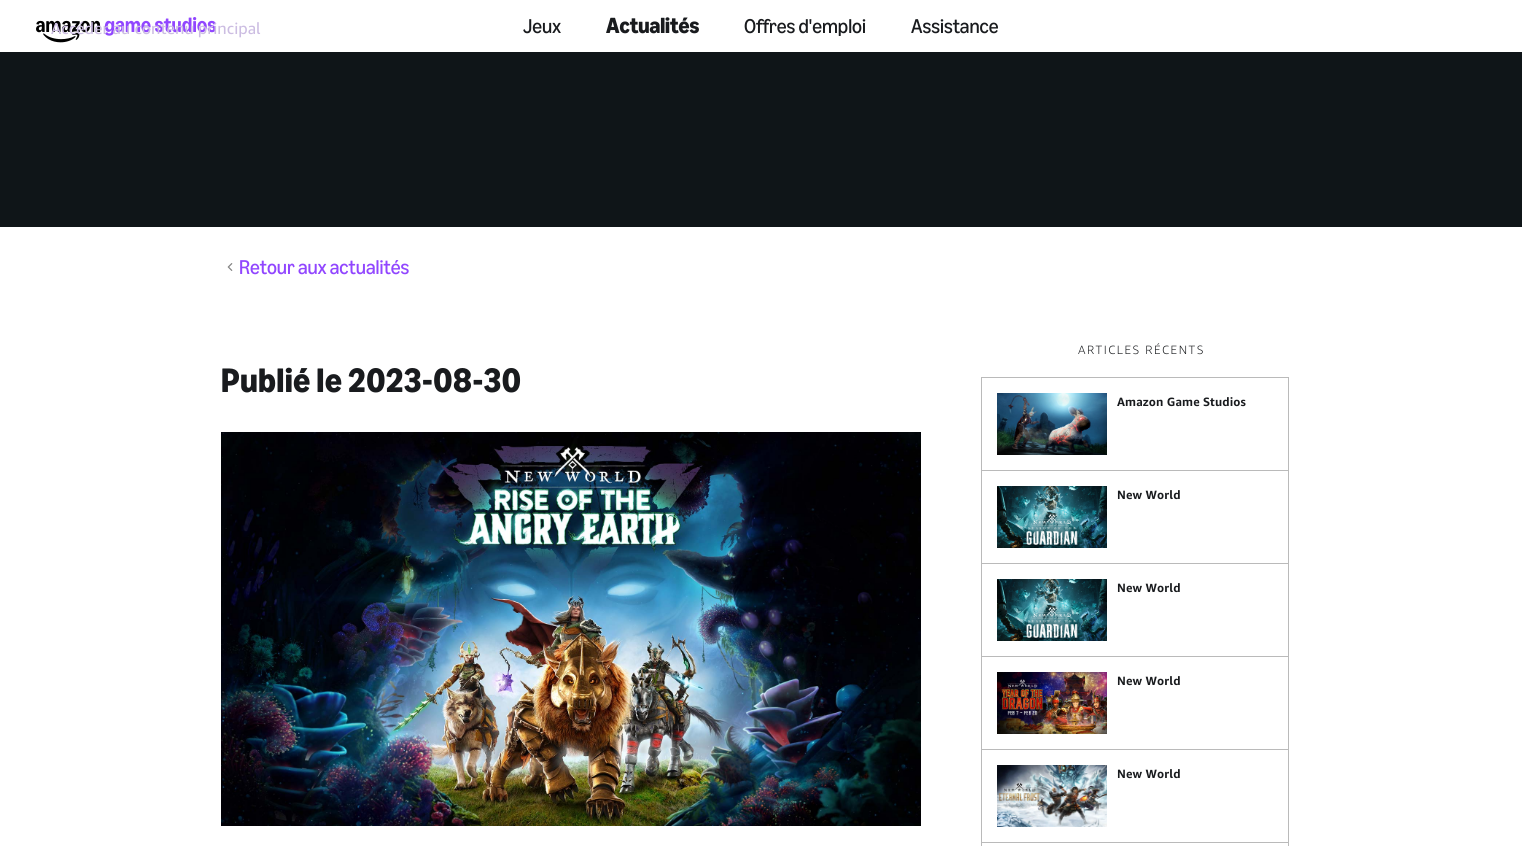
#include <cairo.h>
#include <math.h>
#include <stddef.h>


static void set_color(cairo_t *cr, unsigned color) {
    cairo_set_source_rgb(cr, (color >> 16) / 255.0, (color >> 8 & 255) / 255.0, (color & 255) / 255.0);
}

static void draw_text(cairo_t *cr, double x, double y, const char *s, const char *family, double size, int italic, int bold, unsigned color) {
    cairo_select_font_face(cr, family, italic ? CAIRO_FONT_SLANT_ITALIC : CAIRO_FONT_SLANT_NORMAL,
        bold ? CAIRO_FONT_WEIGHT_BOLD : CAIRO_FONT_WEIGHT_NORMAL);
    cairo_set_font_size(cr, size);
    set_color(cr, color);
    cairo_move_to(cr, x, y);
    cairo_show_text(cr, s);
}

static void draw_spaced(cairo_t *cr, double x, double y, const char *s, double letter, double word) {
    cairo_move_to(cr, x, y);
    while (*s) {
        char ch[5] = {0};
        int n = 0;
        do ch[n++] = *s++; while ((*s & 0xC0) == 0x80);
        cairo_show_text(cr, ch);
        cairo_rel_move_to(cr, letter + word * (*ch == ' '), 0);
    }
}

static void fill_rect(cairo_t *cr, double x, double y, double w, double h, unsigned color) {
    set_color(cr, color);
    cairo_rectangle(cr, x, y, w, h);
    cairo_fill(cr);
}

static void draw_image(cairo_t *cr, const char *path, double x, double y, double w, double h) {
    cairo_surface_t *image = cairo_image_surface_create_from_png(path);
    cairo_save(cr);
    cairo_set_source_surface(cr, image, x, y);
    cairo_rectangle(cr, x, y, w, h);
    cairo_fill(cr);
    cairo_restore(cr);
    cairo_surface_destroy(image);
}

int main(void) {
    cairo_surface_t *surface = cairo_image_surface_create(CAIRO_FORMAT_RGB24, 1522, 846);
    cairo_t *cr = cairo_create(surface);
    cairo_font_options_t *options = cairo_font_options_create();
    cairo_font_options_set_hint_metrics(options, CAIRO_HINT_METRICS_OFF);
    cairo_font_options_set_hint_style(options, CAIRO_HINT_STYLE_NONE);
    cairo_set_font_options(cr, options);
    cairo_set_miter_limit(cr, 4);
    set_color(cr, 0xFFFFFF);
    cairo_paint(cr);
    draw_image(cr, "assets/img1.png", 36, 17, 180, 26);
    draw_text(cr, 523, 33, "Jeux", "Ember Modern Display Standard", 20, 0, 0, 0x191B1E);
    draw_text(cr, 606, 33, "Actualités", "Ember Modern Display Standard", 22, 0, 1, 0x191B1E);
    draw_text(cr, 744, 33, "Offres d'emploi", "Ember Modern Display Standard", 20, 0, 0, 0x191B1E);
    draw_text(cr, 911, 33, "Assistance", "Ember Modern Display Standard", 20, 0, 0, 0x191B1E);
    draw_text(cr, 51, 34, "Accéder au contenu principal", "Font", 16, 0, 0, 0xCCBDE2);
    fill_rect(cr, 0, 52, 1522, 175, 0x0F1518);
    draw_image(cr, "assets/img2.png", 227, 263, 6, 8);
    draw_text(cr, 239, 274, "Retour aux actualités", "Ember Modern Display Standard", 20, 0, 0, 0x9146FF);
    cairo_select_font_face(cr, "Ember Modern Display Standard", CAIRO_FONT_SLANT_NORMAL, CAIRO_FONT_WEIGHT_BOLD);
    cairo_set_font_size(cr, 34);
    set_color(cr, 0x191B1E);
    draw_spaced(cr, 221, 392, "Publié le 2023-08-30", 0.75, 0);
    draw_image(cr, "assets/img3.png", 221, 432, 700, 394);
    cairo_select_font_face(cr, "Font Light", CAIRO_FONT_SLANT_NORMAL, CAIRO_FONT_WEIGHT_NORMAL);
    cairo_set_font_size(cr, 12);
    draw_spaced(cr, 1078, 354, "ARTICLES RÉCENTS", 1.5, 0);
    cairo_rectangle(cr, 981.5, 377.5, 307, 93);
    set_color(cr, 0xBABABA);
    cairo_set_line_width(cr, 1);
    cairo_stroke(cr);
    draw_image(cr, "assets/img4.png", 997, 393, 110, 62);
    cairo_select_font_face(cr, "Font", CAIRO_FONT_SLANT_NORMAL, CAIRO_FONT_WEIGHT_BOLD);
    set_color(cr, 0x191B1E);
    draw_spaced(cr, 1117, 406, "Amazon Game Studios", 0.1, 0);
    cairo_rectangle(cr, 981.5, 470.5, 307, 93);
    set_color(cr, 0xBABABA);
    cairo_stroke(cr);
    draw_image(cr, "assets/img5.png", 997, 486, 110, 62);
    set_color(cr, 0x191B1E);
    draw_spaced(cr, 1117, 499, "New World", 0.1, 0);
    cairo_rectangle(cr, 981.5, 563.5, 307, 93);
    set_color(cr, 0xBABABA);
    cairo_stroke(cr);
    draw_image(cr, "assets/img6.png", 997, 579, 110, 62);
    set_color(cr, 0x191B1E);
    draw_spaced(cr, 1117, 592, "New World", 0.1, 0);
    cairo_rectangle(cr, 981.5, 656.5, 307, 93);
    set_color(cr, 0xBABABA);
    cairo_stroke(cr);
    draw_image(cr, "assets/img7.png", 997, 672, 110, 62);
    set_color(cr, 0x191B1E);
    draw_spaced(cr, 1117, 685, "New World", 0.1, 0);
    cairo_rectangle(cr, 981.5, 749.5, 307, 93);
    set_color(cr, 0xBABABA);
    cairo_stroke(cr);
    draw_image(cr, "assets/img8.png", 997, 765, 110, 62);
    set_color(cr, 0x191B1E);
    draw_spaced(cr, 1117, 778, "New World", 0.1, 0);
    cairo_rectangle(cr, 981.5, 842.5, 307, 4);
    set_color(cr, 0xBABABA);
    cairo_stroke(cr);
    cairo_surface_write_to_png(surface, "output.png");
    cairo_font_options_destroy(options);
    cairo_destroy(cr);
    cairo_surface_destroy(surface);
    return 0;
}
